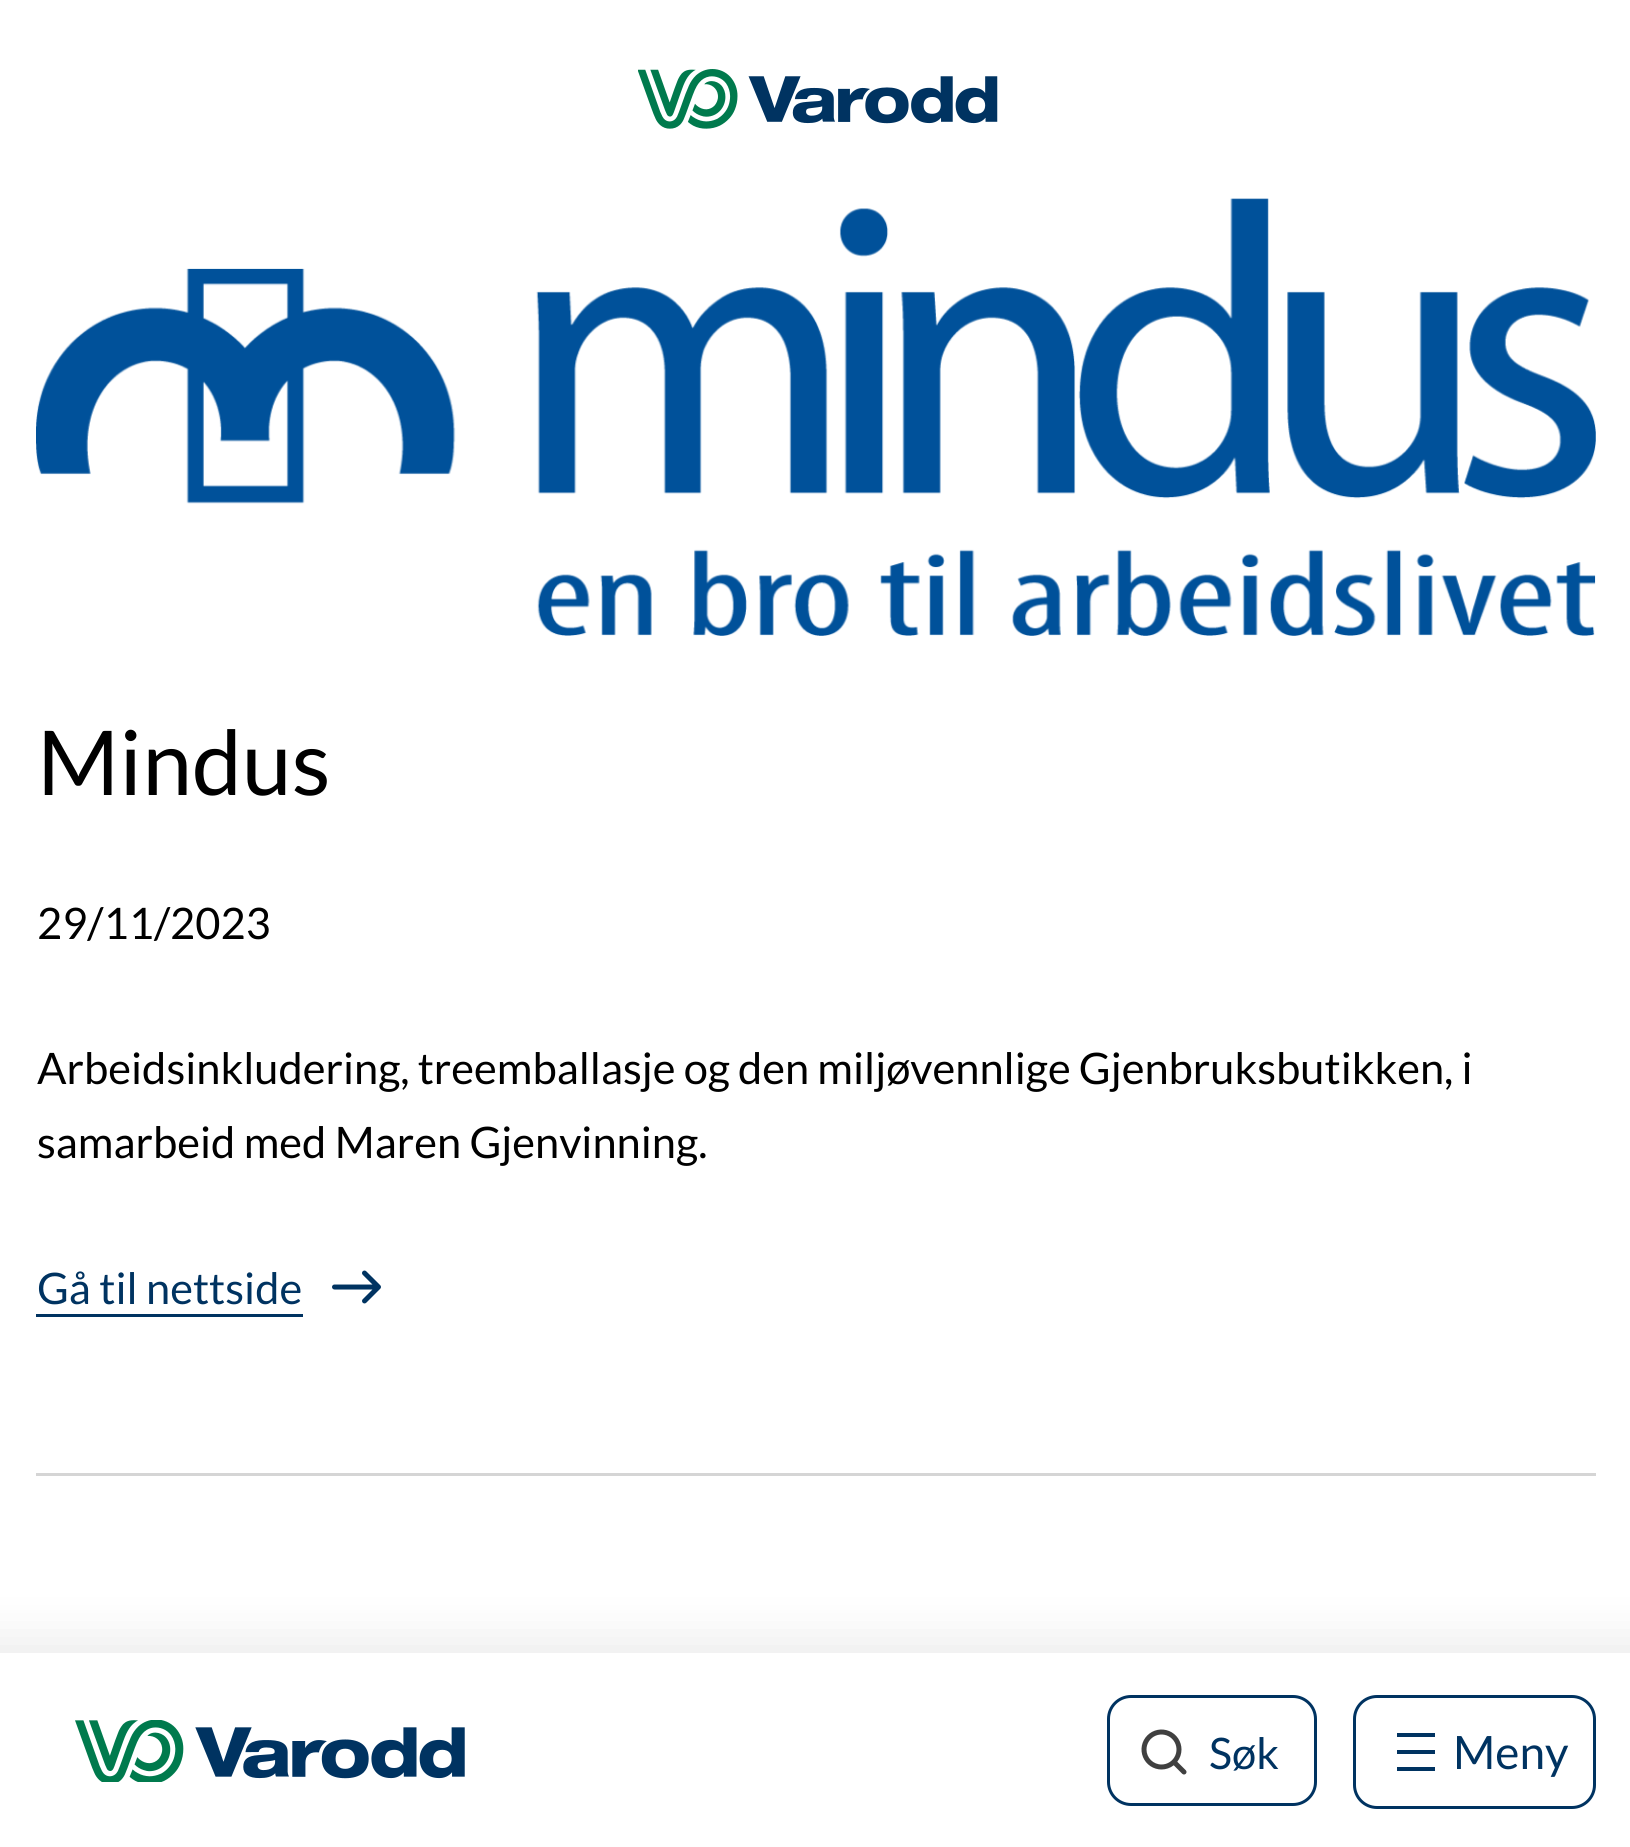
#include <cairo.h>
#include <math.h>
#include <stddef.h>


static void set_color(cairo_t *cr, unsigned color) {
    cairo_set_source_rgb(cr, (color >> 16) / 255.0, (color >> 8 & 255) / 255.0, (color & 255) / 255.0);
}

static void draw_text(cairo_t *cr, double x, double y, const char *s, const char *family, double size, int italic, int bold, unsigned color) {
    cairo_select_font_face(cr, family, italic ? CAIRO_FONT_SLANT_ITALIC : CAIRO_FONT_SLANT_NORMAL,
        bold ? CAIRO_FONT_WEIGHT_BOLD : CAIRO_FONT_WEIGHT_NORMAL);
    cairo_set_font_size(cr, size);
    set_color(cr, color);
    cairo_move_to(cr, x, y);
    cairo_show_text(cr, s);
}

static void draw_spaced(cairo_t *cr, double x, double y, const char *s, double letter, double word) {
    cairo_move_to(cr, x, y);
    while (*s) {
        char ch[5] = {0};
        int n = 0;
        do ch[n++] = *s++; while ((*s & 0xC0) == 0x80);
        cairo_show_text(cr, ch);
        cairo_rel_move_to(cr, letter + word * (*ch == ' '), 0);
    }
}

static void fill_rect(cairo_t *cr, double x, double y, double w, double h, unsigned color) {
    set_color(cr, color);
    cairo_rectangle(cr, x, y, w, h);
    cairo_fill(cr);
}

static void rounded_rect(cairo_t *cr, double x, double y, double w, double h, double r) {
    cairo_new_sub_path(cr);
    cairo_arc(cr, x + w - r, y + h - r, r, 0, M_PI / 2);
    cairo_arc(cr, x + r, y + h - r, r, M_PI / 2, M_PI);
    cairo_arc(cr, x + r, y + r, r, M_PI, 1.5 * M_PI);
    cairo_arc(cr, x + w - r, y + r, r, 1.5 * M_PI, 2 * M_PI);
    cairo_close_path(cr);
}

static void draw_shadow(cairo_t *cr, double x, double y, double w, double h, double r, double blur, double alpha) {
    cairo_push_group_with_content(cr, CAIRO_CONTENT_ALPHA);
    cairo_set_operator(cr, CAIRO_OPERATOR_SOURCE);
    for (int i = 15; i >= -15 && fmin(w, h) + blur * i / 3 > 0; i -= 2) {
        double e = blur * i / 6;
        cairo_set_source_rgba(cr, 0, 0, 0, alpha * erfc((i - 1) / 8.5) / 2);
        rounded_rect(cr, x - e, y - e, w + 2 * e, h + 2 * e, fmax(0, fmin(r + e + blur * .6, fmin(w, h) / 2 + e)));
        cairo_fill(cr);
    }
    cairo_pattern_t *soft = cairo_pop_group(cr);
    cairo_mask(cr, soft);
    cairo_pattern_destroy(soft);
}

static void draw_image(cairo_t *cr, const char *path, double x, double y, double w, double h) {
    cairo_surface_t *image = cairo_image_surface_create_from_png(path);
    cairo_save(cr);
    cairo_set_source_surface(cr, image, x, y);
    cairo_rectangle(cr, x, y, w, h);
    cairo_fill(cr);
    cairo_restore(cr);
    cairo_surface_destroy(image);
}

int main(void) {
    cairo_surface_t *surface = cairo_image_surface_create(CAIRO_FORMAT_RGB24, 1630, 1847);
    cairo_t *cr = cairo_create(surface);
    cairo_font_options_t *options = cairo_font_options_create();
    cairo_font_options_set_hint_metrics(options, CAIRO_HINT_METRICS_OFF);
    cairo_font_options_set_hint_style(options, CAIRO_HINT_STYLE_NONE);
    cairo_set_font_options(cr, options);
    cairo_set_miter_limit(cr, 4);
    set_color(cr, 0xFFFFFF);
    cairo_paint(cr);
    draw_image(cr, "assets/img1.png", 638, 69, 360, 60);
    draw_image(cr, "assets/img2.png", 36, 198, 1560, 438);
    draw_text(cr, 37, 795, "Mindus", "Lato", 89.5, 0, 0, 0x000000);
    draw_text(cr, 37, 939, "29/11/2023", "Lato", 43.4, 0, 0, 0x000000);
    draw_spaced(cr, 37, 1084, "Arbeidsinkludering, treemballasje og den miljøvennlige Gjenbruksbutikken, i", 0, -0.25);
    draw_text(cr, 37, 1158, "samarbeid med Maren Gjenvinning.", "Lato", 43.4, 0, 0, 0x000000);
    draw_text(cr, 37, 1304, "Gå til nettside", "Lato", 43.4, 0, 0, 0x003361);
    fill_rect(cr, 36, 1314, 267, 3, 0x003361);
    draw_image(cr, "assets/img3.png", 332, 1270, 49, 34);
    fill_rect(cr, 36, 1473, 1560, 3, 0xD5D5D5);
    set_color(cr, 0x29292A);
    draw_shadow(cr, -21, 1641, 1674, 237, 0, 24, 0.1);
    fill_rect(cr, 0, 1653, 1630, 194, 0xFFFFFF);
    draw_image(cr, "assets/img4.png", 75, 1720, 390, 62);
    rounded_rect(cr, 1108.5, 1696.5, 207, 108, 22.5);
    set_color(cr, 0x003361);
    cairo_set_line_width(cr, 3);
    cairo_stroke(cr);
    draw_image(cr, "assets/img5.png", 1141, 1729, 46, 46);
    draw_text(cr, 1209, 1769, "Søk", "Lato", 43.4, 0, 0, 0x003361);
    rounded_rect(cr, 1354.5, 1696.5, 240, 111, 22.5);
    cairo_stroke(cr);
    cairo_new_path(cr);
    cairo_move_to(cr, 1397, 1733);
    cairo_line_to(cr, 1397, 1737);
    cairo_line_to(cr, 1435, 1737);
    cairo_line_to(cr, 1435, 1733);
    cairo_close_path(cr);
    cairo_move_to(cr, 1397, 1754);
    cairo_line_to(cr, 1435, 1754);
    cairo_line_to(cr, 1435, 1750);
    cairo_line_to(cr, 1397, 1750);
    cairo_close_path(cr);
    cairo_move_to(cr, 1397, 1771);
    cairo_line_to(cr, 1435, 1771);
    cairo_line_to(cr, 1435, 1767);
    cairo_line_to(cr, 1397, 1767);
    cairo_close_path(cr);
    cairo_fill(cr);
    draw_text(cr, 1453, 1769, "Meny", "Lato", 46, 0, 0, 0x003361);
    cairo_surface_write_to_png(surface, "output.png");
    cairo_font_options_destroy(options);
    cairo_destroy(cr);
    cairo_surface_destroy(surface);
    return 0;
}
